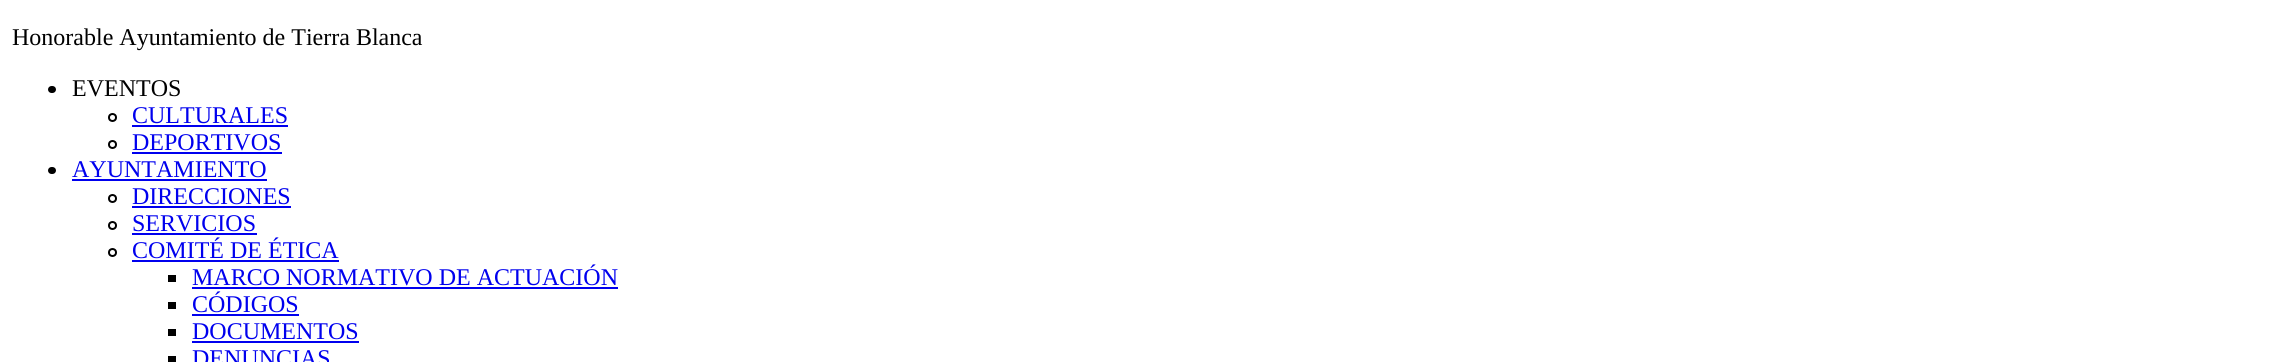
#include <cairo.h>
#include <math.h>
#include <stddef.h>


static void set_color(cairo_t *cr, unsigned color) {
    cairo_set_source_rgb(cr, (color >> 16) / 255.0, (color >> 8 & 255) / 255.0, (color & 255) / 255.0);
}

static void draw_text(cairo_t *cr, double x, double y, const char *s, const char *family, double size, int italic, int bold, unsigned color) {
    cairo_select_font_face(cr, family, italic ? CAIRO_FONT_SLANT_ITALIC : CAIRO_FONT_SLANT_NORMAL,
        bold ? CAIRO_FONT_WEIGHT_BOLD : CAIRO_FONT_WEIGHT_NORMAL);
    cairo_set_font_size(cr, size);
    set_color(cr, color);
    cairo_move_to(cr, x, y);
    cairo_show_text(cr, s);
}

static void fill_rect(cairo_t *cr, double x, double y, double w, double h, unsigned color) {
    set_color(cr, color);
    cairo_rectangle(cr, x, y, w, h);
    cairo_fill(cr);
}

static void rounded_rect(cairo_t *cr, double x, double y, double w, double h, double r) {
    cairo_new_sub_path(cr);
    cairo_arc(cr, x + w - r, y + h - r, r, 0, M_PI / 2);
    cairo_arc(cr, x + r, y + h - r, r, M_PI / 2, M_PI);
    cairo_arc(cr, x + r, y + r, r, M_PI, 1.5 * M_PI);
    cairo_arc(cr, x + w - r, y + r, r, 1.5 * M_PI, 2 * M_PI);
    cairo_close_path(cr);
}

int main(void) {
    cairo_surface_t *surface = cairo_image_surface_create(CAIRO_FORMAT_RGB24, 2278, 362);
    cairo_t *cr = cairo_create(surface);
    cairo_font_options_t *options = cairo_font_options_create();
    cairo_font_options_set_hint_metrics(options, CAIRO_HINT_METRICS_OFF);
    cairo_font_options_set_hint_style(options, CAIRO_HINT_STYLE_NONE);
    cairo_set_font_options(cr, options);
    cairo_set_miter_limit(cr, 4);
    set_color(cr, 0xFFFFFF);
    cairo_paint(cr);
    draw_text(cr, 12, 45, "Honorable Ayuntamiento de Tierra Blanca", "Liberation Serif", 24, 0, 0, 0x000000);
    rounded_rect(cr, 48, 86, 8, 7, 3.5);
    cairo_fill(cr);
    draw_text(cr, 72, 96, "EVENTOS", "Liberation Serif", 24, 0, 0, 0x000000);
    cairo_new_path(cr);
    cairo_arc(cr, 112.5, 117.5, 3.5, 0, 2 * M_PI);
    cairo_stroke(cr);
    draw_text(cr, 132, 123, "CULTURALES", "Liberation Serif", 24, 0, 0, 0x0000EE);
    fill_rect(cr, 132, 125, 156, 2, 0x0000EE);
    cairo_new_path(cr);
    cairo_arc(cr, 112.5, 144.5, 3.5, 0, 2 * M_PI);
    set_color(cr, 0x000000);
    cairo_stroke(cr);
    draw_text(cr, 132, 150, "DEPORTIVOS", "Liberation Serif", 24, 0, 0, 0x0000EE);
    fill_rect(cr, 132, 152, 150, 2, 0x0000EE);
    set_color(cr, 0x000000);
    rounded_rect(cr, 48, 167, 8, 7, 3.5);
    cairo_fill(cr);
    draw_text(cr, 72, 177, "AYUNTAMIENTO", "Liberation Serif", 24, 0, 0, 0x0000EE);
    fill_rect(cr, 72, 179, 195, 2, 0x0000EE);
    cairo_new_path(cr);
    cairo_arc(cr, 112.5, 198.5, 3.5, 0, 2 * M_PI);
    set_color(cr, 0x000000);
    cairo_stroke(cr);
    draw_text(cr, 132, 204, "DIRECCIONES", "Liberation Serif", 24, 0, 0, 0x0000EE);
    fill_rect(cr, 132, 206, 159, 2, 0x0000EE);
    cairo_new_path(cr);
    cairo_arc(cr, 112.5, 225.5, 3.5, 0, 2 * M_PI);
    set_color(cr, 0x000000);
    cairo_stroke(cr);
    draw_text(cr, 132, 231, "SERVICIOS", "Liberation Serif", 24, 0, 0, 0x0000EE);
    fill_rect(cr, 132, 233, 125, 2, 0x0000EE);
    cairo_new_path(cr);
    cairo_arc(cr, 112.5, 252.5, 3.5, 0, 2 * M_PI);
    set_color(cr, 0x000000);
    cairo_stroke(cr);
    draw_text(cr, 132, 258, "COMITÉ DE ÉTICA", "Liberation Serif", 24, 0, 0, 0x0000EE);
    fill_rect(cr, 132, 260, 207, 2, 0x0000EE);
    fill_rect(cr, 168, 275, 8, 7, 0x000000);
    draw_text(cr, 192, 285, "MARCO NORMATIVO DE ACTUACIÓN", "Liberation Serif", 24, 0, 0, 0x0000EE);
    fill_rect(cr, 192, 287, 426, 2, 0x0000EE);
    fill_rect(cr, 168, 302, 8, 7, 0x000000);
    draw_text(cr, 192, 312, "CÓDIGOS", "Liberation Serif", 24, 0, 0, 0x0000EE);
    fill_rect(cr, 192, 314, 107, 2, 0x0000EE);
    fill_rect(cr, 168, 329, 8, 7, 0x000000);
    draw_text(cr, 192, 339, "DOCUMENTOS", "Liberation Serif", 24, 0, 0, 0x0000EE);
    fill_rect(cr, 192, 341, 167, 2, 0x0000EE);
    fill_rect(cr, 168, 356, 8, 6, 0x000000);
    draw_text(cr, 192, 366, "DENUNCIAS", "Liberation Serif", 24, 0, 0, 0x0000EE);
    cairo_surface_write_to_png(surface, "output.png");
    cairo_font_options_destroy(options);
    cairo_destroy(cr);
    cairo_surface_destroy(surface);
    return 0;
}
